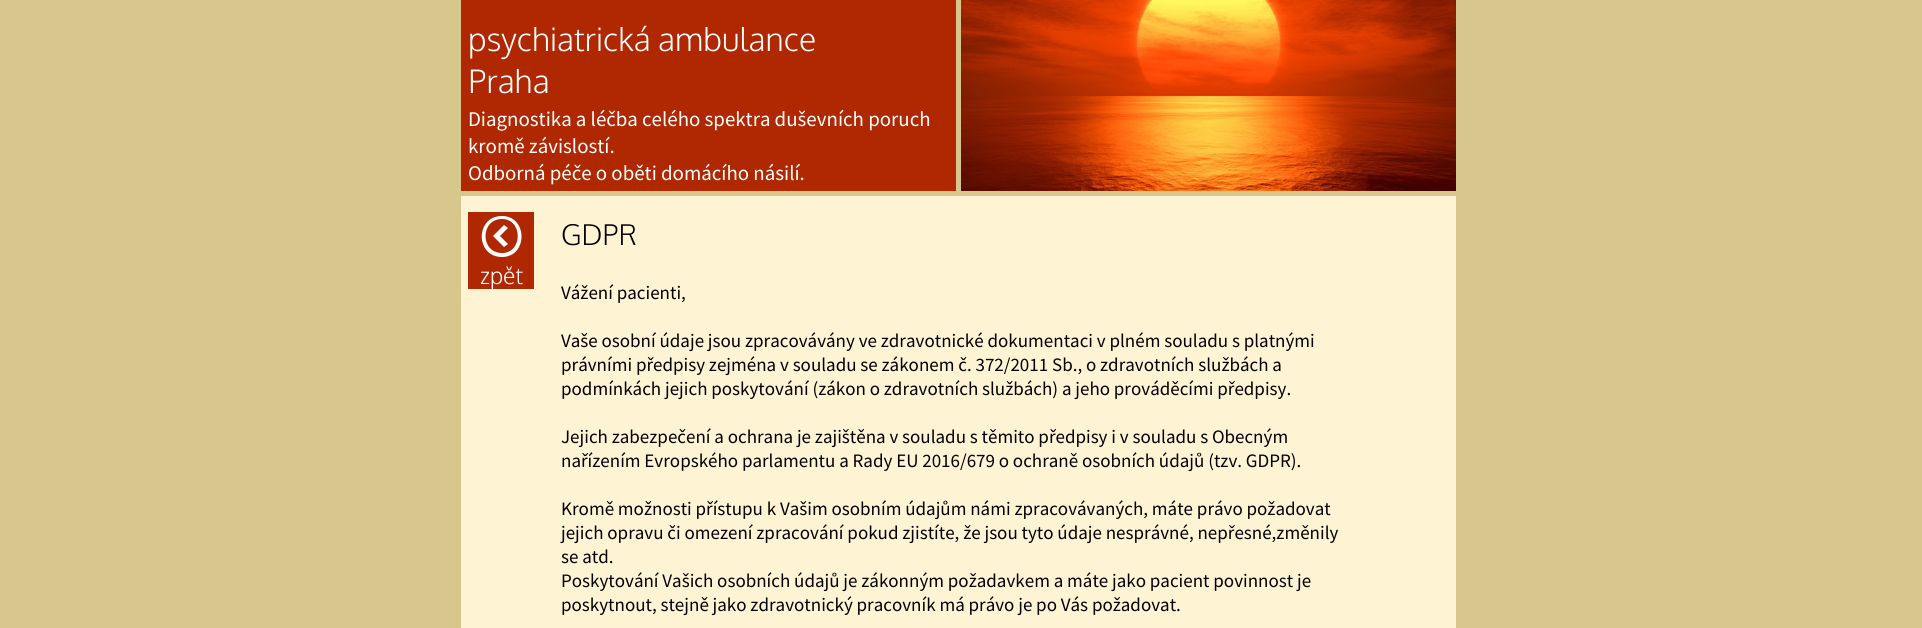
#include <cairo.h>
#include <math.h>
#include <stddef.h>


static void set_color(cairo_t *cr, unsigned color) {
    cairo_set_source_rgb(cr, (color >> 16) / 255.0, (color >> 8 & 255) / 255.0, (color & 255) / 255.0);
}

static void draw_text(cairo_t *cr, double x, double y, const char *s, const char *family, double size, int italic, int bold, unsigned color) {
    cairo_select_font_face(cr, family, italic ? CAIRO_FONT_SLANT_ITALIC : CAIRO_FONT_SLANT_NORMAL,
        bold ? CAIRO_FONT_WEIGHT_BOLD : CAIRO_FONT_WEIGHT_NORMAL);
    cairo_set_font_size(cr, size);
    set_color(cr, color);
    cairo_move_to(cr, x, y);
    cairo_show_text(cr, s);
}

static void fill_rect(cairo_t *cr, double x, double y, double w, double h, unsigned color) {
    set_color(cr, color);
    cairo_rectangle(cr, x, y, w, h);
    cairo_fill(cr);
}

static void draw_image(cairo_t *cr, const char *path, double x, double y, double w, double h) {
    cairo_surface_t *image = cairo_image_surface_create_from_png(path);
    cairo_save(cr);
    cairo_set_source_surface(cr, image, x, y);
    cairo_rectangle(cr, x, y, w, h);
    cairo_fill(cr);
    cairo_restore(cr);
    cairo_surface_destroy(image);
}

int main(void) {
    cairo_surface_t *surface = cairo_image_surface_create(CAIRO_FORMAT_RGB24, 1922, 628);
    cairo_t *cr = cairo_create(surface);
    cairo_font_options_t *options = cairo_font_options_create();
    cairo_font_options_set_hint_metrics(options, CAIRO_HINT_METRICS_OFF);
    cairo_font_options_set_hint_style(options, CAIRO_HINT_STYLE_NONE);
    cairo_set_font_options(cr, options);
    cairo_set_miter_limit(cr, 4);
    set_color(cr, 0xD7C78C);
    cairo_paint(cr);
    fill_rect(cr, 461, 0, 495, 191, 0xB02801);
    draw_text(cr, 468, 51, "psychiatrická ambulance", "Oxygen Light", 32.25, 0, 0, 0xFFFFFF);
    draw_text(cr, 468, 93, "Praha", "Oxygen Light", 32.25, 0, 0, 0xFFFFFF);
    draw_text(cr, 468, 126, "Diagnostika a léčba celého spektra duševních poruch", "Source Sans Pro", 20.9, 0, 0, 0xFFFFFF);
    draw_text(cr, 468, 153, "kromě závislostí.", "Source Sans Pro", 20.9, 0, 0, 0xFFFFFF);
    draw_text(cr, 468, 180, "Odborná péče o oběti domácího násilí.", "Source Sans Pro", 20.9, 0, 0, 0xFFFFFF);
    draw_image(cr, "assets/img1.png", 961, 0, 495, 191);
    fill_rect(cr, 461, 196, 995, 432, 0xFEF4D4);
    fill_rect(cr, 468, 212, 66, 77, 0xB02801);
    set_color(cr, 0xFFFFFF);
    cairo_new_path(cr);
    cairo_move_to(cr, 502, 257);
    cairo_curve_to(cr, 528, 257, 528, 216, 502, 216);
    cairo_curve_to(cr, 475, 216, 475, 257, 502, 257);
    cairo_close_path(cr);
    cairo_move_to(cr, 502, 219);
    cairo_curve_to(cr, 523, 219, 523, 253, 502, 253);
    cairo_curve_to(cr, 480, 253, 480, 219, 502, 219);
    cairo_close_path(cr);
    cairo_move_to(cr, 508, 228);
    cairo_line_to(cr, 504, 225);
    cairo_line_to(cr, 493, 236);
    cairo_line_to(cr, 504, 247);
    cairo_line_to(cr, 508, 244);
    cairo_line_to(cr, 500, 236);
    cairo_close_path(cr);
    cairo_fill(cr);
    draw_text(cr, 480, 284, "zpět", "Oxygen Light", 23, 0, 0, 0xFFFFFF);
    draw_text(cr, 561, 245, "GDPR", "Oxygen Light", 28.5, 0, 0, 0x000000);
    draw_text(cr, 561, 299, "Vážení pacienti,", "Source Sans Pro", 19, 0, 0, 0x000000);
    draw_text(cr, 561, 347, "Vaše osobní údaje jsou zpracovávány ve zdravotnické dokumentaci v plném souladu s platnými", "Source Sans Pro", 19, 0, 0, 0x000000);
    draw_text(cr, 561, 371, "právními předpisy zejména v souladu se zákonem č. 372/2011 Sb., o zdravotních službách a", "Source Sans Pro", 19, 0, 0, 0x000000);
    draw_text(cr, 561, 395, "podmínkách jejich poskytování (zákon o zdravotních službách) a jeho prováděcími předpisy.", "Source Sans Pro", 19, 0, 0, 0x000000);
    draw_text(cr, 561, 443, "Jejich zabezpečení a ochrana je zajištěna v souladu s těmito předpisy i v souladu s Obecným", "Source Sans Pro", 19, 0, 0, 0x000000);
    draw_text(cr, 561, 467, "nařízením Evropského parlamentu a Rady EU 2016/679 o ochraně osobních údajů (tzv. GDPR).", "Source Sans Pro", 19, 0, 0, 0x000000);
    draw_text(cr, 561, 515, "Kromě možnosti přístupu k Vašim osobním údajům námi zpracovávaných, máte právo požadovat", "Source Sans Pro", 19, 0, 0, 0x000000);
    draw_text(cr, 561, 539, "jejich opravu či omezení zpracování pokud zjistíte, že jsou tyto údaje nesprávné, nepřesné,změnily", "Source Sans Pro", 19, 0, 0, 0x000000);
    draw_text(cr, 561, 563, "se atd.", "Source Sans Pro", 19, 0, 0, 0x000000);
    draw_text(cr, 561, 587, "Poskytování Vašich osobních údajů je zákonným požadavkem a máte jako pacient povinnost je", "Source Sans Pro", 19, 0, 0, 0x000000);
    draw_text(cr, 561, 611, "poskytnout, stejně jako zdravotnický pracovník má právo je po Vás požadovat.", "Source Sans Pro", 19, 0, 0, 0x000000);
    cairo_surface_write_to_png(surface, "output.png");
    cairo_font_options_destroy(options);
    cairo_destroy(cr);
    cairo_surface_destroy(surface);
    return 0;
}
